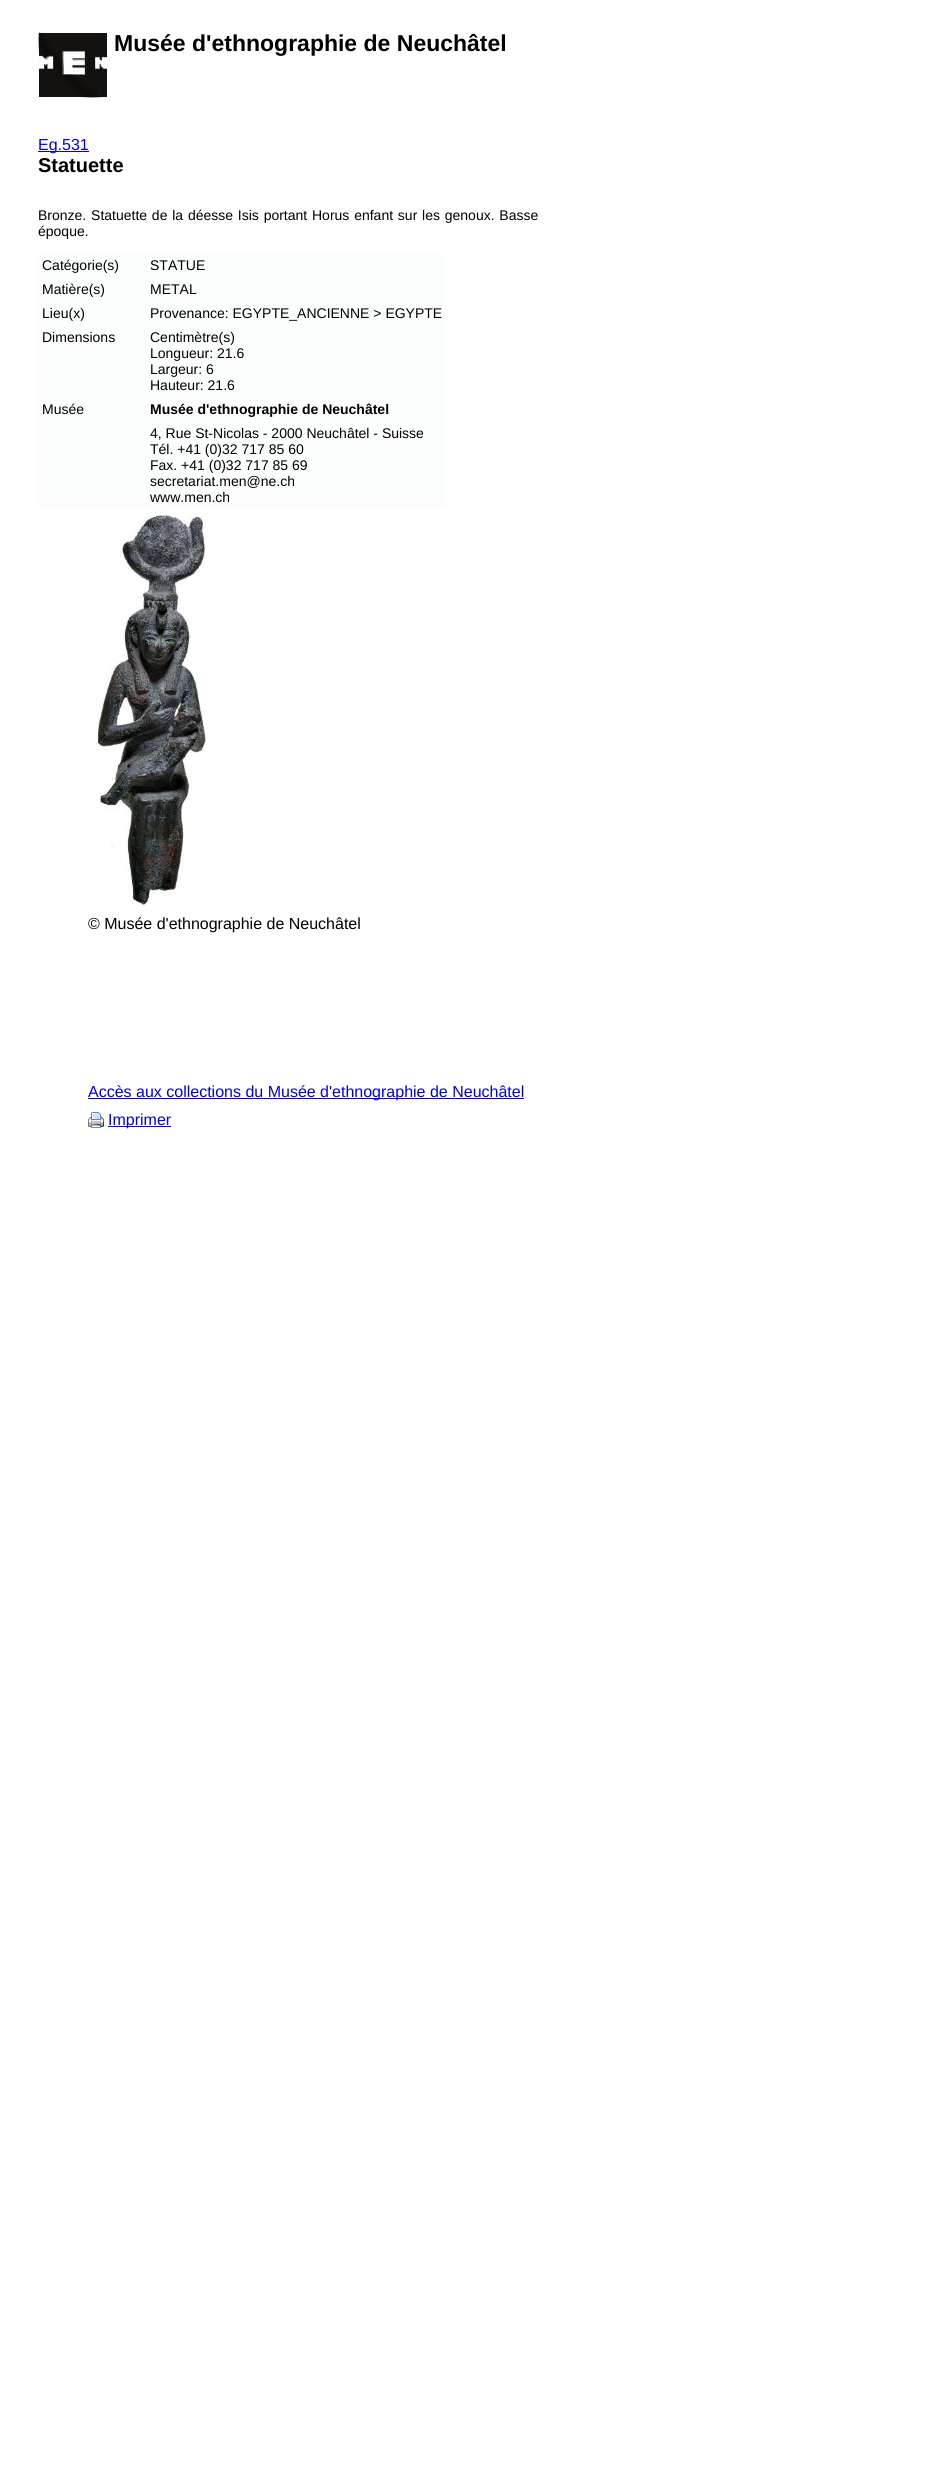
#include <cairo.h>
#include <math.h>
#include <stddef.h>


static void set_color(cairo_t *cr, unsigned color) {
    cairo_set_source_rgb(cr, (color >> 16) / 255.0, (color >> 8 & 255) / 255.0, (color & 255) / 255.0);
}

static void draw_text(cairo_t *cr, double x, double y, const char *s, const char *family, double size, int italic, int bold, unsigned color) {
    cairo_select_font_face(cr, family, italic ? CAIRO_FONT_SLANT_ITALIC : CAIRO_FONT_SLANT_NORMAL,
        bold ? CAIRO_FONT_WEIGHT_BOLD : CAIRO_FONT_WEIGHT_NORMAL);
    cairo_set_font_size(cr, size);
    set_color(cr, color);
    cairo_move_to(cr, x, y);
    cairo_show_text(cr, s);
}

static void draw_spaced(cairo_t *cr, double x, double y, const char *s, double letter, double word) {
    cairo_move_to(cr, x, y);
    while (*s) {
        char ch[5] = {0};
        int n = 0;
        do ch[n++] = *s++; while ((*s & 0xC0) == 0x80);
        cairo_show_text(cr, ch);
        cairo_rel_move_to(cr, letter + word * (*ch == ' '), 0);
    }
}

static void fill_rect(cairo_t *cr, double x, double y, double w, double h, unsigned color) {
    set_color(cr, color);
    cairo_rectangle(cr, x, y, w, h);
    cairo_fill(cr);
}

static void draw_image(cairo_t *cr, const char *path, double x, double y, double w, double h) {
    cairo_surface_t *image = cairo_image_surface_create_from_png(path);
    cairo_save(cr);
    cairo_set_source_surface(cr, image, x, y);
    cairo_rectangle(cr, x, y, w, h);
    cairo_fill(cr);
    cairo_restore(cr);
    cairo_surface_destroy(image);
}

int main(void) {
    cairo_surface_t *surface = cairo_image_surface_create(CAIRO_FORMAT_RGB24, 941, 2485);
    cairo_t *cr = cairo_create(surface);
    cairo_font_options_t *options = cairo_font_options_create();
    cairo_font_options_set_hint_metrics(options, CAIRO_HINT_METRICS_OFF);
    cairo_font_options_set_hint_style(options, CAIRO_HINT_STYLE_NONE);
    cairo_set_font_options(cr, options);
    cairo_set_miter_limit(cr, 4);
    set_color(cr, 0xFFFFFF);
    cairo_paint(cr);
    draw_image(cr, "assets/img1.png", 38, 30, 70, 70);
    draw_text(cr, 114, 51, "Musée d'ethnographie de Neuchâtel", "Liberation Sans", 23, 0, 1, 0x000000);
    fill_rect(cr, 38, 151, 51, 1, 0x0000EE);
    draw_text(cr, 38, 150, "Eg.531", "Liberation Sans", 16, 0, 0, 0x0000EE);
    draw_text(cr, 38, 172, "Statuette", "Liberation Sans", 20, 0, 1, 0x000000);
    cairo_select_font_face(cr, "Liberation Sans", CAIRO_FONT_SLANT_NORMAL, CAIRO_FONT_WEIGHT_NORMAL);
    cairo_set_font_size(cr, 14);
    draw_spaced(cr, 38, 220, "Bronze. Statuette de la déesse Isis portant Horus enfant sur les genoux. Basse", 0, 0.9);
    draw_text(cr, 38, 236, "époque.", "Liberation Sans", 14, 0, 0, 0x000000);
    fill_rect(cr, 38, 253, 408, 256, 0xFCFDFD);
    draw_text(cr, 42, 270, "Catégorie(s)", "Liberation Sans", 14, 0, 0, 0x000000);
    draw_text(cr, 150, 270, "STATUE", "Liberation Sans", 14, 0, 0, 0x000000);
    draw_text(cr, 42, 294, "Matière(s)", "Liberation Sans", 14, 0, 0, 0x000000);
    draw_text(cr, 150, 294, "METAL", "Liberation Sans", 14, 0, 0, 0x000000);
    draw_text(cr, 42, 318, "Lieu(x)", "Liberation Sans", 14, 0, 0, 0x000000);
    draw_text(cr, 150, 318, "Provenance: EGYPTE_ANCIENNE > EGYPTE", "Liberation Sans", 14, 0, 0, 0x000000);
    draw_text(cr, 42, 342, "Dimensions", "Liberation Sans", 14, 0, 0, 0x000000);
    draw_text(cr, 150, 342, "Centimètre(s)", "Liberation Sans", 14, 0, 0, 0x000000);
    draw_text(cr, 150, 358, "Longueur: 21.6", "Liberation Sans", 14, 0, 0, 0x000000);
    draw_text(cr, 150, 374, "Largeur: 6", "Liberation Sans", 14, 0, 0, 0x000000);
    draw_text(cr, 150, 390, "Hauteur: 21.6", "Liberation Sans", 14, 0, 0, 0x000000);
    draw_text(cr, 42, 414, "Musée", "Liberation Sans", 14, 0, 0, 0x000000);
    draw_text(cr, 150, 414, "Musée d'ethnographie de Neuchâtel", "Liberation Sans", 14, 0, 1, 0x000000);
    draw_text(cr, 150, 438, "4, Rue St-Nicolas - 2000 Neuchâtel - Suisse", "Liberation Sans", 14, 0, 0, 0x000000);
    draw_text(cr, 150, 454, "Tél. +41 (0)32 717 85 60", "Liberation Sans", 14, 0, 0, 0x000000);
    draw_text(cr, 150, 470, "Fax. +41 (0)32 717 85 69", "Liberation Sans", 14, 0, 0, 0x000000);
    draw_text(cr, 150, 486, "secretariat.men@ne.ch", "Liberation Sans", 14, 0, 0, 0x000000);
    draw_text(cr, 150, 502, "www.men.ch", "Liberation Sans", 14, 0, 0, 0x000000);
    draw_image(cr, "assets/img2.png", 94, 511, 112, 395);
    draw_text(cr, 88, 929, "© Musée d'ethnographie de Neuchâtel", "Liberation Sans", 16, 0, 0, 0x000000);
    fill_rect(cr, 88, 1098, 436, 1, 0x0000EE);
    draw_text(cr, 88, 1097, "Accès aux collections du Musée d'ethnographie de Neuchâtel", "Liberation Sans", 16, 0, 0, 0x0000EE);
    draw_image(cr, "assets/img3.png", 88, 1112, 16, 16);
    fill_rect(cr, 108, 1126, 63, 1, 0x0000EE);
    draw_text(cr, 108, 1125, "Imprimer", "Liberation Sans", 16, 0, 0, 0x0000EE);
    cairo_surface_write_to_png(surface, "output.png");
    cairo_font_options_destroy(options);
    cairo_destroy(cr);
    cairo_surface_destroy(surface);
    return 0;
}
